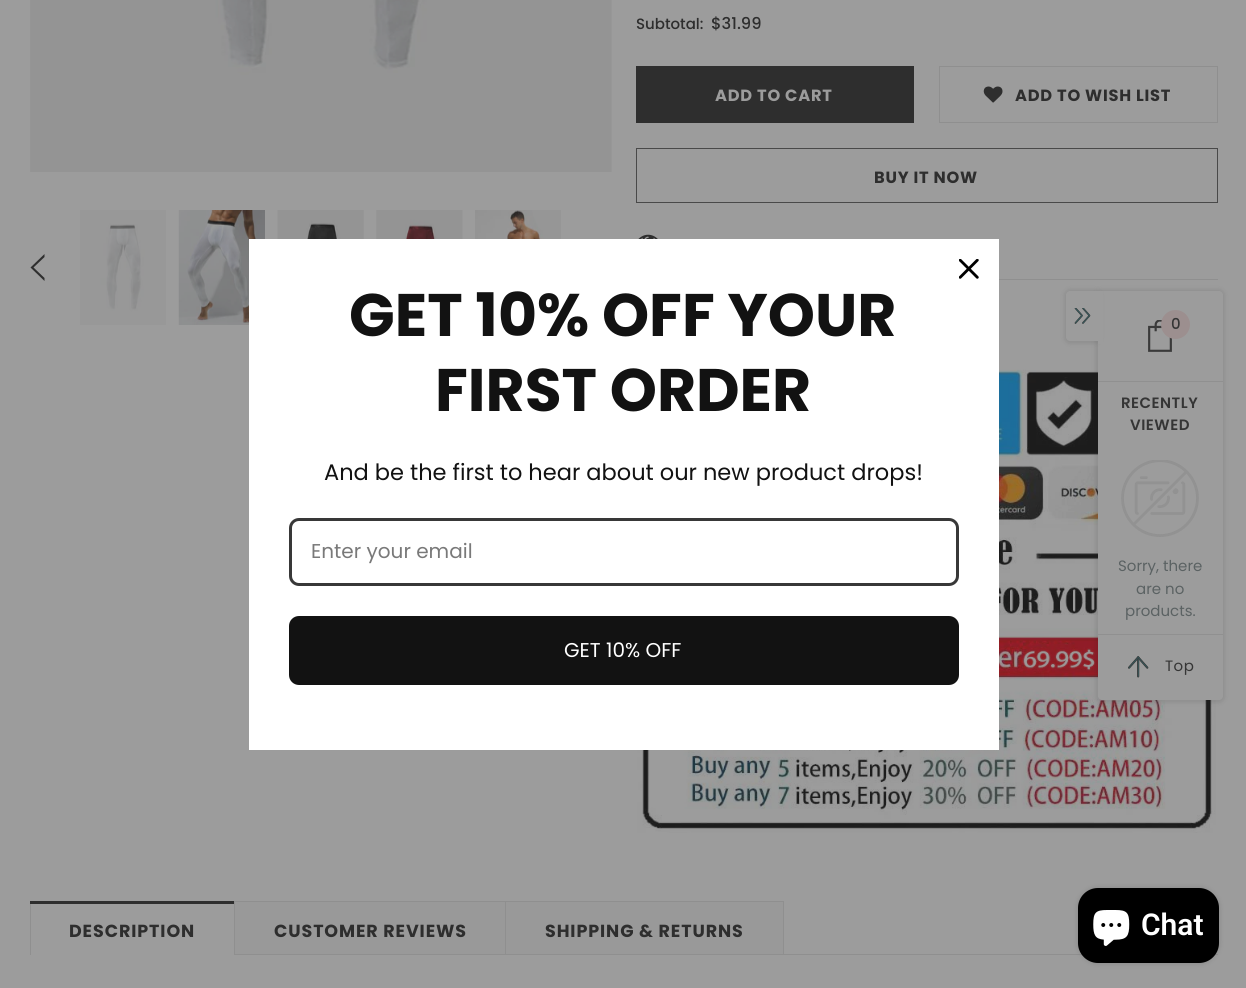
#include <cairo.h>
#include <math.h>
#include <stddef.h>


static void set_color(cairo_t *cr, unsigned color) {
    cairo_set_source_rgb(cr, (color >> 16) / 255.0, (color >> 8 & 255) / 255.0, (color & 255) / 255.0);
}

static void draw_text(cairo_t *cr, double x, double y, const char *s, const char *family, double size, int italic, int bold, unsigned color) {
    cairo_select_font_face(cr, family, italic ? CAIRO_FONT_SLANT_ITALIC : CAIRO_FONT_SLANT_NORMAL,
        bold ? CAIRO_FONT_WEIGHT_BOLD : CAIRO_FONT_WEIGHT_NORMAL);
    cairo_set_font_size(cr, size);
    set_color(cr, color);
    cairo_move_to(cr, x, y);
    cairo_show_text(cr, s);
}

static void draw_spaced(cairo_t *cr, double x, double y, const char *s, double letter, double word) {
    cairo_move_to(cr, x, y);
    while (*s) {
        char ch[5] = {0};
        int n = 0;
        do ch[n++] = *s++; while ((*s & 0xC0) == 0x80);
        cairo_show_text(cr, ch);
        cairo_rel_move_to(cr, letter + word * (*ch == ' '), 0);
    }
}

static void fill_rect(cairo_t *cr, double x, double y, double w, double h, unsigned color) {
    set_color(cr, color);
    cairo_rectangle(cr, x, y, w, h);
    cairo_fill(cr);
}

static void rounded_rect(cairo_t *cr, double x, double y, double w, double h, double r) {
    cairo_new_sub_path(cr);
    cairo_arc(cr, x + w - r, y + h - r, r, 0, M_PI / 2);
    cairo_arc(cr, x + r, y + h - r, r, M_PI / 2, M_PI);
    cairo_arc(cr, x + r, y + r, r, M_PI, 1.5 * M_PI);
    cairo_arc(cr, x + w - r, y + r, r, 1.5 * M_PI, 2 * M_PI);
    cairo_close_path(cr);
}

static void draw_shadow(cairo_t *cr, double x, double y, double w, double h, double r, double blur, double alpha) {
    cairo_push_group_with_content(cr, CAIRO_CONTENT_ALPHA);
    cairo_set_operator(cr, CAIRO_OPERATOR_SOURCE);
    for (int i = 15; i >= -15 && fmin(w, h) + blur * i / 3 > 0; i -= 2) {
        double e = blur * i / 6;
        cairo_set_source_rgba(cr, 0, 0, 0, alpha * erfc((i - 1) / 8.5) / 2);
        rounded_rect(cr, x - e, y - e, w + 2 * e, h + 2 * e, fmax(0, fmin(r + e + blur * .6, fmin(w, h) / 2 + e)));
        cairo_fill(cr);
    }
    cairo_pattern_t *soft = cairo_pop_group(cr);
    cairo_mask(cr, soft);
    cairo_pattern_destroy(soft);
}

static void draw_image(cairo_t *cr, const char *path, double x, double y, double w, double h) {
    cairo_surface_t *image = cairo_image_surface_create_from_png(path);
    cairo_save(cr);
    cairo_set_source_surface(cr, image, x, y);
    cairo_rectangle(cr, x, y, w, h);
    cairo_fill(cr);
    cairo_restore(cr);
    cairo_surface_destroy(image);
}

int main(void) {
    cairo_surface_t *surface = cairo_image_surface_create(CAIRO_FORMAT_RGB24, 1246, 988);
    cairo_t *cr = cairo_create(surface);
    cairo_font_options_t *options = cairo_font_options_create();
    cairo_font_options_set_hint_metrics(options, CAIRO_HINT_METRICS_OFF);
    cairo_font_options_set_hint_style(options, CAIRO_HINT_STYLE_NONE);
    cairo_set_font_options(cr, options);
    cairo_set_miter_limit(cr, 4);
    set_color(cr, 0x9C9C9C);
    cairo_paint(cr);
    draw_image(cr, "assets/img1.png", 30, 0, 582, 172);
    set_color(cr, 0x2E2E2E);
    cairo_new_path(cr);
    cairo_move_to(cr, 30.5, 267.5);
    cairo_line_to(cr, 44.5, 281);
    cairo_line_to(cr, 44.5, 278);
    cairo_line_to(cr, 33.5, 267.5);
    cairo_line_to(cr, 44.5, 257);
    cairo_line_to(cr, 44.5, 254);
    cairo_close_path(cr);
    cairo_fill(cr);
    draw_image(cr, "assets/img2.png", 80, 210, 86, 115);
    draw_image(cr, "assets/img3.png", 178, 210, 87, 115);
    draw_image(cr, "assets/img4.png", 277, 210, 87, 29);
    draw_image(cr, "assets/img5.png", 376, 210, 87, 29);
    draw_image(cr, "assets/img6.png", 475, 210, 86, 29);
    draw_text(cr, 636, 29, "Subtotal:", "Poppins Medium", 15, 0, 0, 0x2E2E2E);
    draw_text(cr, 711, 29, "$31.99", "Poppins Medium", 16.25, 0, 0, 0x2E2E2E);
    fill_rect(cr, 636, 66, 278, 57, 0x2E2E2E);
    cairo_select_font_face(cr, "Poppins", CAIRO_FONT_SLANT_NORMAL, CAIRO_FONT_WEIGHT_BOLD);
    set_color(cr, 0x9C9C9C);
    draw_spaced(cr, 715, 101, "ADD TO CART", 0.75, 0);
    cairo_rectangle(cr, 939.5, 66.5, 278, 56);
    set_color(cr, 0x8F8F8F);
    cairo_set_line_width(cr, 1);
    cairo_stroke(cr);
    draw_image(cr, "assets/img7.png", 983, 86, 20, 17);
    set_color(cr, 0x2E2E2E);
    draw_spaced(cr, 1015, 101, "ADD TO WISH LIST", 0.75, 0);
    cairo_rectangle(cr, 636.5, 148.5, 581, 54);
    set_color(cr, 0x494949);
    cairo_stroke(cr);
    set_color(cr, 0x2E2E2E);
    draw_spaced(cr, 874, 183, "BUY IT NOW", 0.75, 0);
    fill_rect(cr, 999, 279, 219, 1, 0x8F8F8F);
    draw_image(cr, "assets/img8.png", 638, 234, 20, 5);
    draw_image(cr, "assets/img9.png", 636, 369, 581, 464);
    fill_rect(cr, 30, 954, 1188, 1, 0x8F8F8F);
    fill_rect(cr, 30, 901, 1, 53, 0x8F8F8F);
    fill_rect(cr, 30, 901, 205, 3, 0x2E2E2E);
    cairo_set_font_size(cr, 17.5);
    draw_spaced(cr, 69, 937, "DESCRIPTION", 0.9, 0);
    fill_rect(cr, 31, 954, 203, 1, 0x9C9C9C);
    fill_rect(cr, 235, 902, 270, 52, 0x999999);
    fill_rect(cr, 234, 901, 550, 1, 0x8F8F8F);
    fill_rect(cr, 234, 901, 1, 53, 0x8F8F8F);
    set_color(cr, 0x2E2E2E);
    draw_spaced(cr, 274, 937, "CUSTOMER REVIEWS", 0.9, 0);
    fill_rect(cr, 506, 902, 277, 52, 0x999999);
    fill_rect(cr, 783, 901, 1, 53, 0x8F8F8F);
    fill_rect(cr, 505, 901, 1, 53, 0x8F8F8F);
    set_color(cr, 0x2E2E2E);
    draw_spaced(cr, 545, 937, "SHIPPING & RETURNS", 0.9, 0);
    fill_rect(cr, 249, 239, 750, 511, 0xFFFFFF);
    draw_image(cr, "assets/img10.png", 959, 259, 20, 20);
    draw_text(cr, 349, 336, "GET 10% OFF YOUR", "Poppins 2", 60, 0, 1, 0x121212);
    draw_text(cr, 435, 411, "FIRST ORDER", "Poppins 2", 60, 0, 1, 0x121212);
    draw_text(cr, 324, 480, "And be the first to hear about our new product drops!", "Poppins 2", 22.5, 0, 0, 0x121212);
    rounded_rect(cr, 290.5, 519.5, 667, 65, 8.5);
    set_color(cr, 0x383838);
    cairo_set_line_width(cr, 3);
    cairo_stroke(cr);
    draw_text(cr, 311, 558, "Enter your email", "Poppins 2", 20, 0, 0, 0x797979);
    set_color(cr, 0x121212);
    rounded_rect(cr, 290.5, 617.5, 667, 66, 8.5);
    cairo_fill_preserve(cr);
    cairo_stroke(cr);
    draw_text(cr, 564, 657, "GET 10% OFF", "Poppins 2", 20, 0, 0, 0xFFFFFF);
    set_color(cr, 0x1C1C1C);
    draw_shadow(cr, 1095, 289, 130, 414, 6, 2, 0.1);
    set_color(cr, 0x9C9C9C);
    cairo_new_path(cr);
    cairo_move_to(cr, 1098, 291);
    cairo_line_to(cr, 1219, 291);
    cairo_curve_to(cr, 1221, 291, 1223, 293, 1223, 295);
    cairo_line_to(cr, 1223, 696);
    cairo_curve_to(cr, 1223, 698, 1221, 700, 1219, 700);
    cairo_line_to(cr, 1102, 700);
    cairo_curve_to(cr, 1100, 700, 1098, 698, 1098, 696);
    cairo_close_path(cr);
    cairo_fill(cr);
    set_color(cr, 0x1C1C1C);
    draw_shadow(cr, 1064, 289, 37, 55, 6, 2, 0.1);
    set_color(cr, 0x9C9C9C);
    cairo_new_path(cr);
    cairo_move_to(cr, 1070, 291);
    cairo_line_to(cr, 1099, 291);
    cairo_line_to(cr, 1099, 341);
    cairo_line_to(cr, 1070, 341);
    cairo_curve_to(cr, 1068, 341, 1066, 339, 1066, 337);
    cairo_line_to(cr, 1066, 295);
    cairo_curve_to(cr, 1066, 293, 1068, 291, 1070, 291);
    cairo_close_path(cr);
    cairo_fill(cr);
    draw_image(cr, "assets/img11.png", 1074, 308, 17, 16);
    fill_rect(cr, 1098, 291, 5, 53, 0x9C9C9C);
    fill_rect(cr, 1098, 381, 125, 1, 0x909090);
    draw_image(cr, "assets/img12.png", 1148, 320, 24, 32);
    set_color(cr, 0x9C8F8F);
    cairo_arc(cr, 1175.5, 324.5, 14.5, 0, 2 * M_PI);
    cairo_fill(cr);
    draw_text(cr, 1171, 329, "0", "Poppins Medium", 15, 0, 0, 0x353535);
    cairo_select_font_face(cr, "Poppins SemiBold", CAIRO_FONT_SLANT_NORMAL, CAIRO_FONT_WEIGHT_NORMAL);
    draw_spaced(cr, 1121, 408, "RECENTLY", 0.5, 0);
    draw_spaced(cr, 1130, 430, "VIEWED", 0.5, 0);
    draw_image(cr, "assets/img13.png", 1121, 460, 78, 77);
    draw_text(cr, 1118, 571, "Sorry, there", "Poppins", 15, 0, 0, 0x5B6263);
    draw_text(cr, 1136, 594, "are no", "Poppins", 15, 0, 0, 0x5B6263);
    draw_text(cr, 1125, 616, "products.", "Poppins", 15, 0, 0, 0x5B6263);
    fill_rect(cr, 1098, 634, 125, 1, 0x909090);
    draw_image(cr, "assets/img14.png", 1128, 656, 21, 22);
    set_color(cr, 0x353535);
    draw_spaced(cr, 1165, 671, "Top", 0.5, 0);
    set_color(cr, 0x000000);
    draw_shadow(cr, 1078, 888, 141, 75, 20, 3, 0.15);
    set_color(cr, 0x000000);
    rounded_rect(cr, 1078, 888, 141, 75, 20);
    cairo_fill(cr);
    draw_image(cr, "assets/img15.png", 1093, 910, 37, 36);
    draw_text(cr, 1141, 935, "Chat", "Roboto SemiBold", 30, 0, 0, 0xFFFFFF);
    cairo_surface_write_to_png(surface, "output.png");
    cairo_font_options_destroy(options);
    cairo_destroy(cr);
    cairo_surface_destroy(surface);
    return 0;
}
